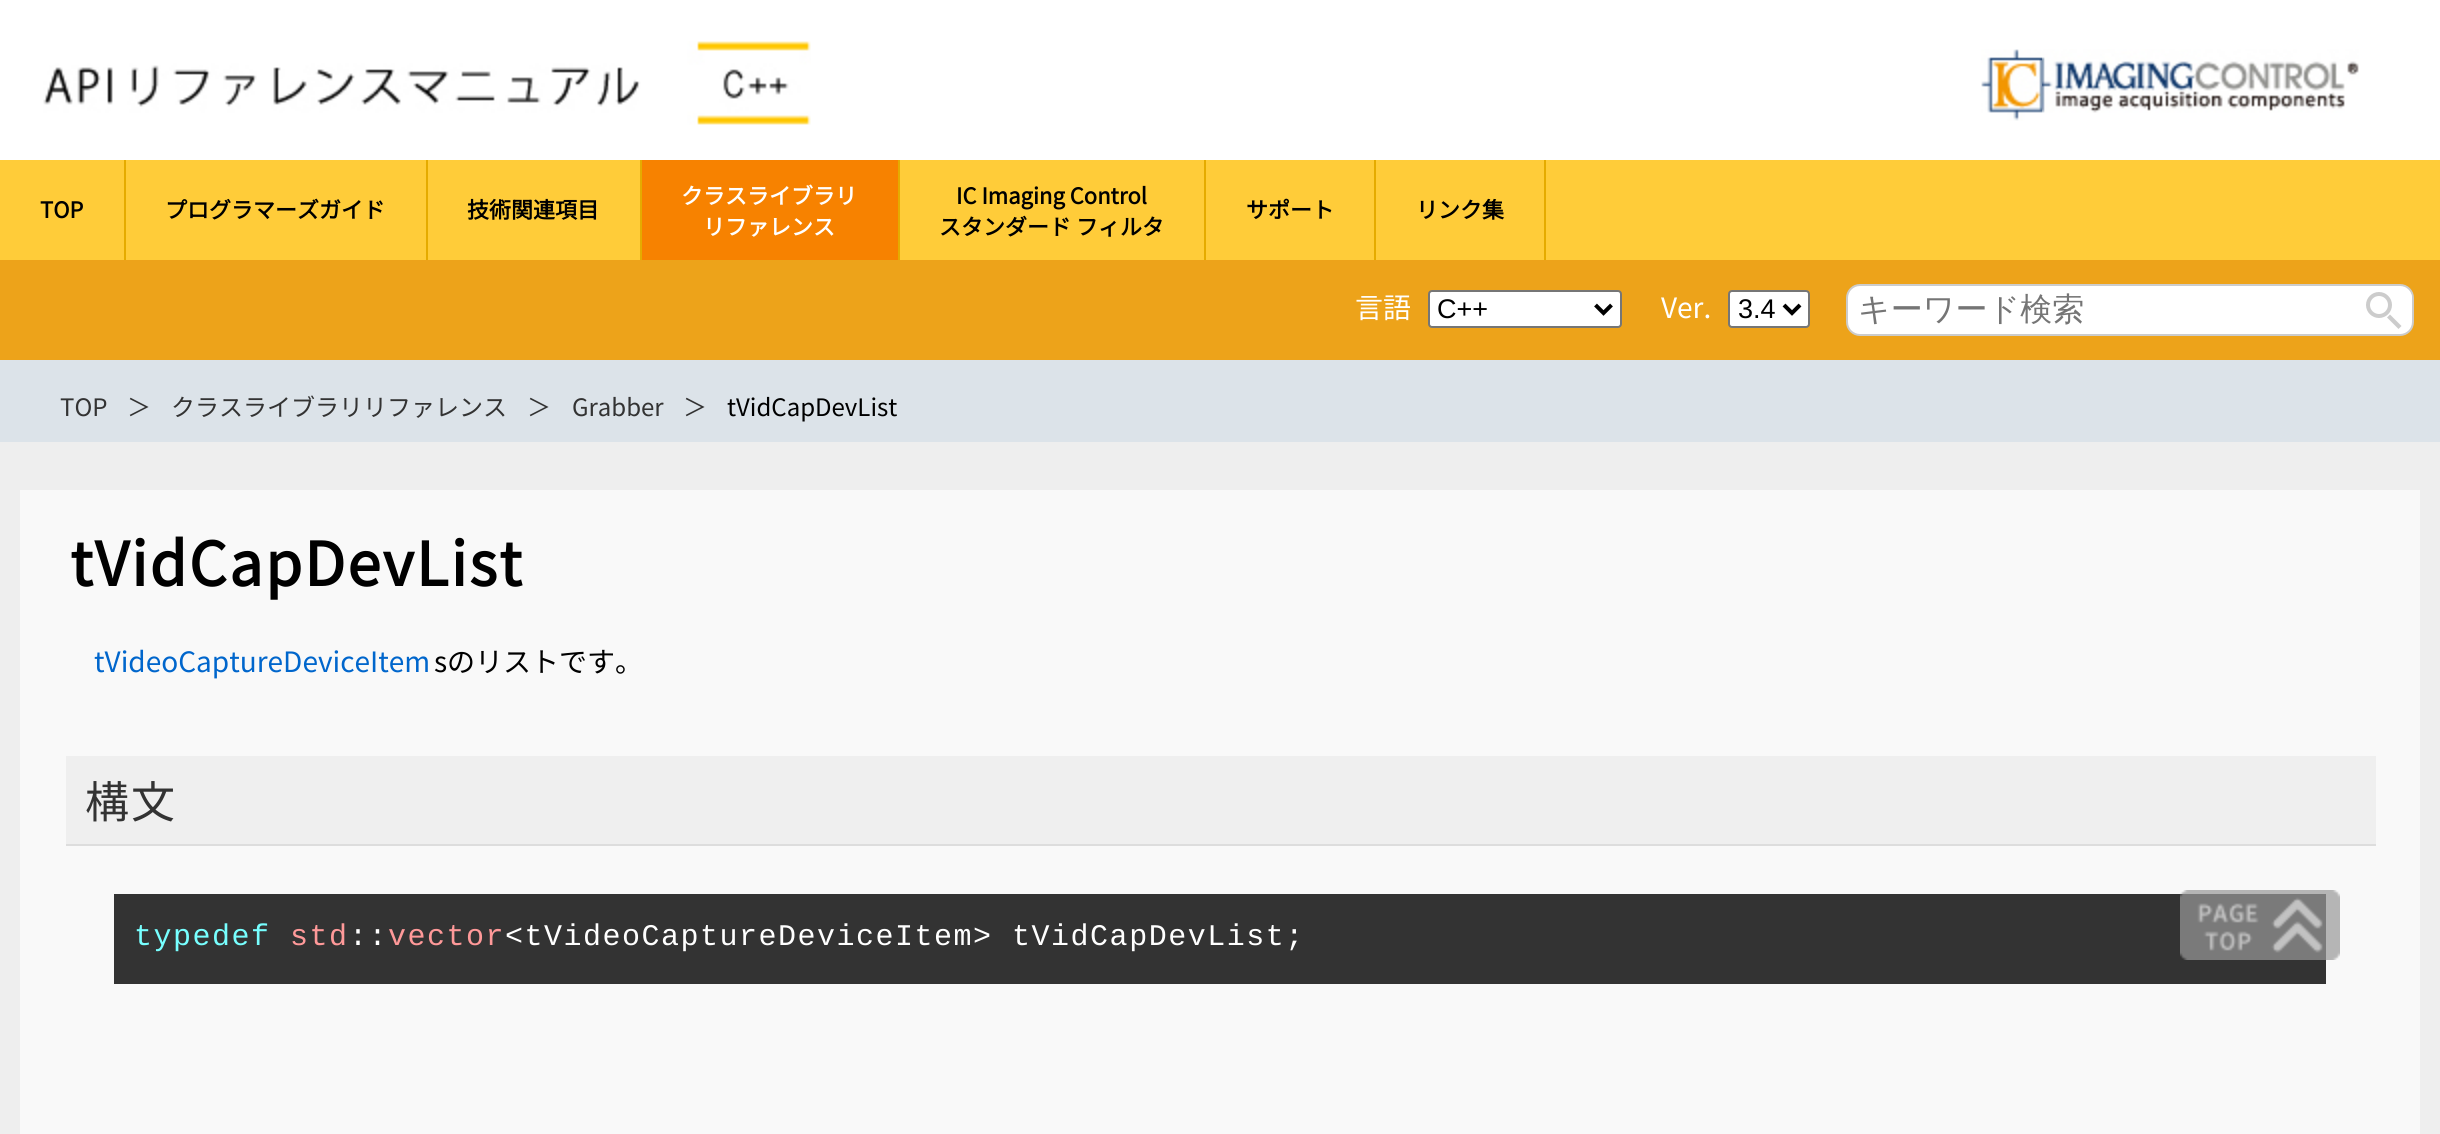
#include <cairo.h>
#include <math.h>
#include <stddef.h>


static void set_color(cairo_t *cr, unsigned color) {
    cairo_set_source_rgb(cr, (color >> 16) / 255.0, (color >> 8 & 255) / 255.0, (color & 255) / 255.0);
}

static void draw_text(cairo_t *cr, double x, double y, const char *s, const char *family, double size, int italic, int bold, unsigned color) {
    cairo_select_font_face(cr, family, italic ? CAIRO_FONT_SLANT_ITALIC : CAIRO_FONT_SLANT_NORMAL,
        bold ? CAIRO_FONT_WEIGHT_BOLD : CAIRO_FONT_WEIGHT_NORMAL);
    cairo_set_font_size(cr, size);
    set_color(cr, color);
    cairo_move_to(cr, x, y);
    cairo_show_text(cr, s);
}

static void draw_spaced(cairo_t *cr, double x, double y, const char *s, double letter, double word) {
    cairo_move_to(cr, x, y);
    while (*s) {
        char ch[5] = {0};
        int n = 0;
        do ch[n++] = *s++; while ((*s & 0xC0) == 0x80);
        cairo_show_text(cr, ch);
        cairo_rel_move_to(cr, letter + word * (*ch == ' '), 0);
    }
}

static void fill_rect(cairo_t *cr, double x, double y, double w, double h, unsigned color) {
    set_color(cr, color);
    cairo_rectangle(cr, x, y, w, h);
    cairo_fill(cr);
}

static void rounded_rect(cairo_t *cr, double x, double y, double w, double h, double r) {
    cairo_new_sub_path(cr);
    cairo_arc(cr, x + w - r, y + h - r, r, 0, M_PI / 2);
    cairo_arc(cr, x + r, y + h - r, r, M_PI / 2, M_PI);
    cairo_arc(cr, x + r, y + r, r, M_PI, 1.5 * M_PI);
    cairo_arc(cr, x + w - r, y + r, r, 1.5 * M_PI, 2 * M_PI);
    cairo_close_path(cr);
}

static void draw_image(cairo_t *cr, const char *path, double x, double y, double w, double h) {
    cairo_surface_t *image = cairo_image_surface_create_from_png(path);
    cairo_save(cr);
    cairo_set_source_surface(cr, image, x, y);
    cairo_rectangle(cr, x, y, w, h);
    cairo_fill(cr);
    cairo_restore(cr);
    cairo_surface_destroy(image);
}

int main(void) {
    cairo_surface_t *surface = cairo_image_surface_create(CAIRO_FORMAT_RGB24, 2440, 1134);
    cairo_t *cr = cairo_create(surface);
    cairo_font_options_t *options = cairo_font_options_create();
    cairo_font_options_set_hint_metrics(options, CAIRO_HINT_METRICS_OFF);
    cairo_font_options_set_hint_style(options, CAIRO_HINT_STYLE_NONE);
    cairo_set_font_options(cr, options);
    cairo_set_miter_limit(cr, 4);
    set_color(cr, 0xFFFFFF);
    cairo_paint(cr);
    draw_image(cr, "assets/img1.png", 1981, 49, 378, 72);
    draw_image(cr, "assets/img2.png", 43, 41, 768, 84);
    fill_rect(cr, 0, 160, 2440, 100, 0xFFCC39);
    fill_rect(cr, 124, 160, 2, 100, 0xE5AB00);
    draw_text(cr, 40, 218, "TOP", "Noto Sans JP", 22, 0, 1, 0x000000);
    fill_rect(cr, 426, 160, 2, 100, 0xE5AB00);
    draw_text(cr, 165, 218, "プログラマーズガイド", "Noto Sans JP", 22, 0, 1, 0x000000);
    fill_rect(cr, 640, 160, 2, 100, 0xE5AB00);
    draw_text(cr, 467, 218, "技術関連項目", "Noto Sans JP", 22, 0, 1, 0x000000);
    fill_rect(cr, 898, 160, 2, 100, 0xE5AB00);
    fill_rect(cr, 642, 160, 256, 100, 0xF78200);
    draw_text(cr, 681, 204, "クラスライブラリ", "Noto Sans JP", 22, 0, 1, 0xFFFFFF);
    draw_text(cr, 703, 235, "リファレンス", "Noto Sans JP", 22, 0, 1, 0xFFFFFF);
    fill_rect(cr, 1204, 160, 2, 100, 0xE5AB00);
    draw_text(cr, 956, 204, "IC Imaging Control", "Noto Sans JP", 22, 0, 1, 0x000000);
    draw_text(cr, 939, 235, "スタンダード フィルタ", "Noto Sans JP", 22, 0, 1, 0x000000);
    fill_rect(cr, 1374, 160, 2, 100, 0xE5AB00);
    draw_text(cr, 1246, 218, "サポート", "Noto Sans JP", 22, 0, 1, 0x000000);
    fill_rect(cr, 1544, 160, 2, 100, 0xE5AB00);
    draw_text(cr, 1416, 218, "リンク集", "Noto Sans JP", 22, 0, 1, 0x000000);
    fill_rect(cr, 0, 260, 2440, 100, 0xEDA31A);
    draw_text(cr, 1355, 318, "言語", "Noto Sans JP Thin", 28, 0, 0, 0xFFFFFF);
    rounded_rect(cr, 1429, 291, 192, 36, 3);
    cairo_fill_preserve(cr);
    set_color(cr, 0x767676);
    cairo_stroke(cr);
    cairo_new_path(cr);
    cairo_move_to(cr, 1595.5, 305);
    cairo_line_to(cr, 1603.5, 313);
    cairo_line_to(cr, 1611.5, 305);
    set_color(cr, 0x000000);
    cairo_set_line_width(cr, 4);
    cairo_stroke(cr);
    draw_text(cr, 1437, 318, "C++", "Liberation Sans", 27, 0, 0, 0x000000);
    draw_text(cr, 1661, 318, "Ver.", "Noto Sans JP Thin", 28, 0, 0, 0xFFFFFF);
    rounded_rect(cr, 1729, 291, 80, 36, 3);
    cairo_fill_preserve(cr);
    set_color(cr, 0x767676);
    cairo_set_line_width(cr, 2);
    cairo_stroke(cr);
    cairo_new_path(cr);
    cairo_move_to(cr, 1784, 305);
    cairo_line_to(cr, 1792, 313);
    cairo_line_to(cr, 1800, 305);
    set_color(cr, 0x000000);
    cairo_set_line_width(cr, 4);
    cairo_stroke(cr);
    draw_text(cr, 1738, 318, "3.4", "Liberation Sans", 27, 0, 0, 0x000000);
    set_color(cr, 0xFFFFFF);
    rounded_rect(cr, 1847, 285, 566, 50, 13);
    cairo_fill_preserve(cr);
    set_color(cr, 0xCCCCCC);
    cairo_set_line_width(cr, 2);
    cairo_stroke(cr);
    draw_text(cr, 1858, 320, "キーワード検索", "WenQuanYi Zen Hei Medium", 32, 0, 0, 0x757575);
    set_color(cr, 0xFFFFFF);
    cairo_new_path(cr);
    cairo_move_to(cr, 2360, 288);
    cairo_line_to(cr, 2402, 288);
    cairo_curve_to(cr, 2407.5, 288, 2412, 292.5, 2412, 298);
    cairo_line_to(cr, 2412, 318);
    cairo_curve_to(cr, 2412, 323.5, 2407.5, 328, 2402, 328);
    cairo_line_to(cr, 2360, 328);
    cairo_close_path(cr);
    cairo_fill(cr);
    cairo_arc(cr, 2379, 305, 11, 0, 2 * M_PI);
    set_color(cr, 0xCCCCCC);
    cairo_set_line_width(cr, 4);
    cairo_stroke(cr);
    cairo_new_path(cr);
    cairo_move_to(cr, 2390, 314.5);
    cairo_line_to(cr, 2401.5, 326);
    cairo_line_to(cr, 2398.5, 329);
    cairo_line_to(cr, 2387, 317.5);
    cairo_close_path(cr);
    cairo_fill(cr);
    fill_rect(cr, 0, 442, 2440, 692, 0xEEEEEE);
    fill_rect(cr, 0, 360, 2440, 82, 0xDCE3E9);
    draw_text(cr, 60, 416, "TOP", "Noto Sans JP Thin", 24, 0, 0, 0x333333);
    draw_text(cr, 127, 416, "＞", "Noto Sans JP Thin", 24, 0, 0, 0x333333);
    draw_text(cr, 171, 416, "クラスライブラリリファレンス", "Noto Sans JP Thin", 24, 0, 0, 0x333333);
    draw_text(cr, 527, 416, "＞", "Noto Sans JP Thin", 24, 0, 0, 0x333333);
    draw_text(cr, 572, 416, "Grabber", "Noto Sans JP Thin", 24, 0, 0, 0x333333);
    draw_text(cr, 683, 416, "＞", "Noto Sans JP Thin", 24, 0, 0, 0x333333);
    draw_text(cr, 727, 416, "tVidCapDevList", "Noto Sans JP Thin", 24, 0, 0, 0x000000);
    fill_rect(cr, 20, 490, 2400, 644, 0xF9F9F9);
    cairo_select_font_face(cr, "Noto Sans JP", CAIRO_FONT_SLANT_NORMAL, CAIRO_FONT_WEIGHT_BOLD);
    cairo_set_font_size(cr, 60);
    set_color(cr, 0x000000);
    draw_spaced(cr, 70, 586, "tVidCapDevList", 2, 0);
    draw_text(cr, 94, 672, "tVideoCaptureDeviceItem", "Noto Sans JP Thin", 28, 0, 0, 0x0066CC);
    draw_text(cr, 434, 672, "sのリストです。", "Noto Sans JP Thin", 28, 0, 0, 0x000000);
    fill_rect(cr, 66, 756, 2310, 88, 0xEFEFEF);
    fill_rect(cr, 66, 844, 2310, 2, 0xDDDDDD);
    cairo_set_font_size(cr, 44);
    set_color(cr, 0x333333);
    draw_spaced(cr, 85, 818, "構文", 2, 0);
    fill_rect(cr, 114, 894, 2212, 90, 0x333333);
    cairo_select_font_face(cr, "Liberation Mono", CAIRO_FONT_SLANT_NORMAL, CAIRO_FONT_WEIGHT_NORMAL);
    cairo_set_font_size(cr, 30);
    set_color(cr, 0x77FFFF);
    draw_spaced(cr, 134, 945, "typedef", 1.5, 0);
    set_color(cr, 0xFF9999);
    draw_spaced(cr, 290, 945, "std", 1.5, 0);
    set_color(cr, 0xFFFFFF);
    draw_spaced(cr, 349, 945, "::", 1.5, 0);
    set_color(cr, 0xFF9999);
    draw_spaced(cr, 388, 945, "vector", 1.5, 0);
    set_color(cr, 0xFFFFFF);
    draw_spaced(cr, 505, 945, "<tVideoCaptureDeviceItem> tVidCapDevList;", 1.5, 0);
    draw_image(cr, "assets/img3.png", 2180, 890, 160, 70);
    cairo_surface_write_to_png(surface, "output.png");
    cairo_font_options_destroy(options);
    cairo_destroy(cr);
    cairo_surface_destroy(surface);
    return 0;
}
